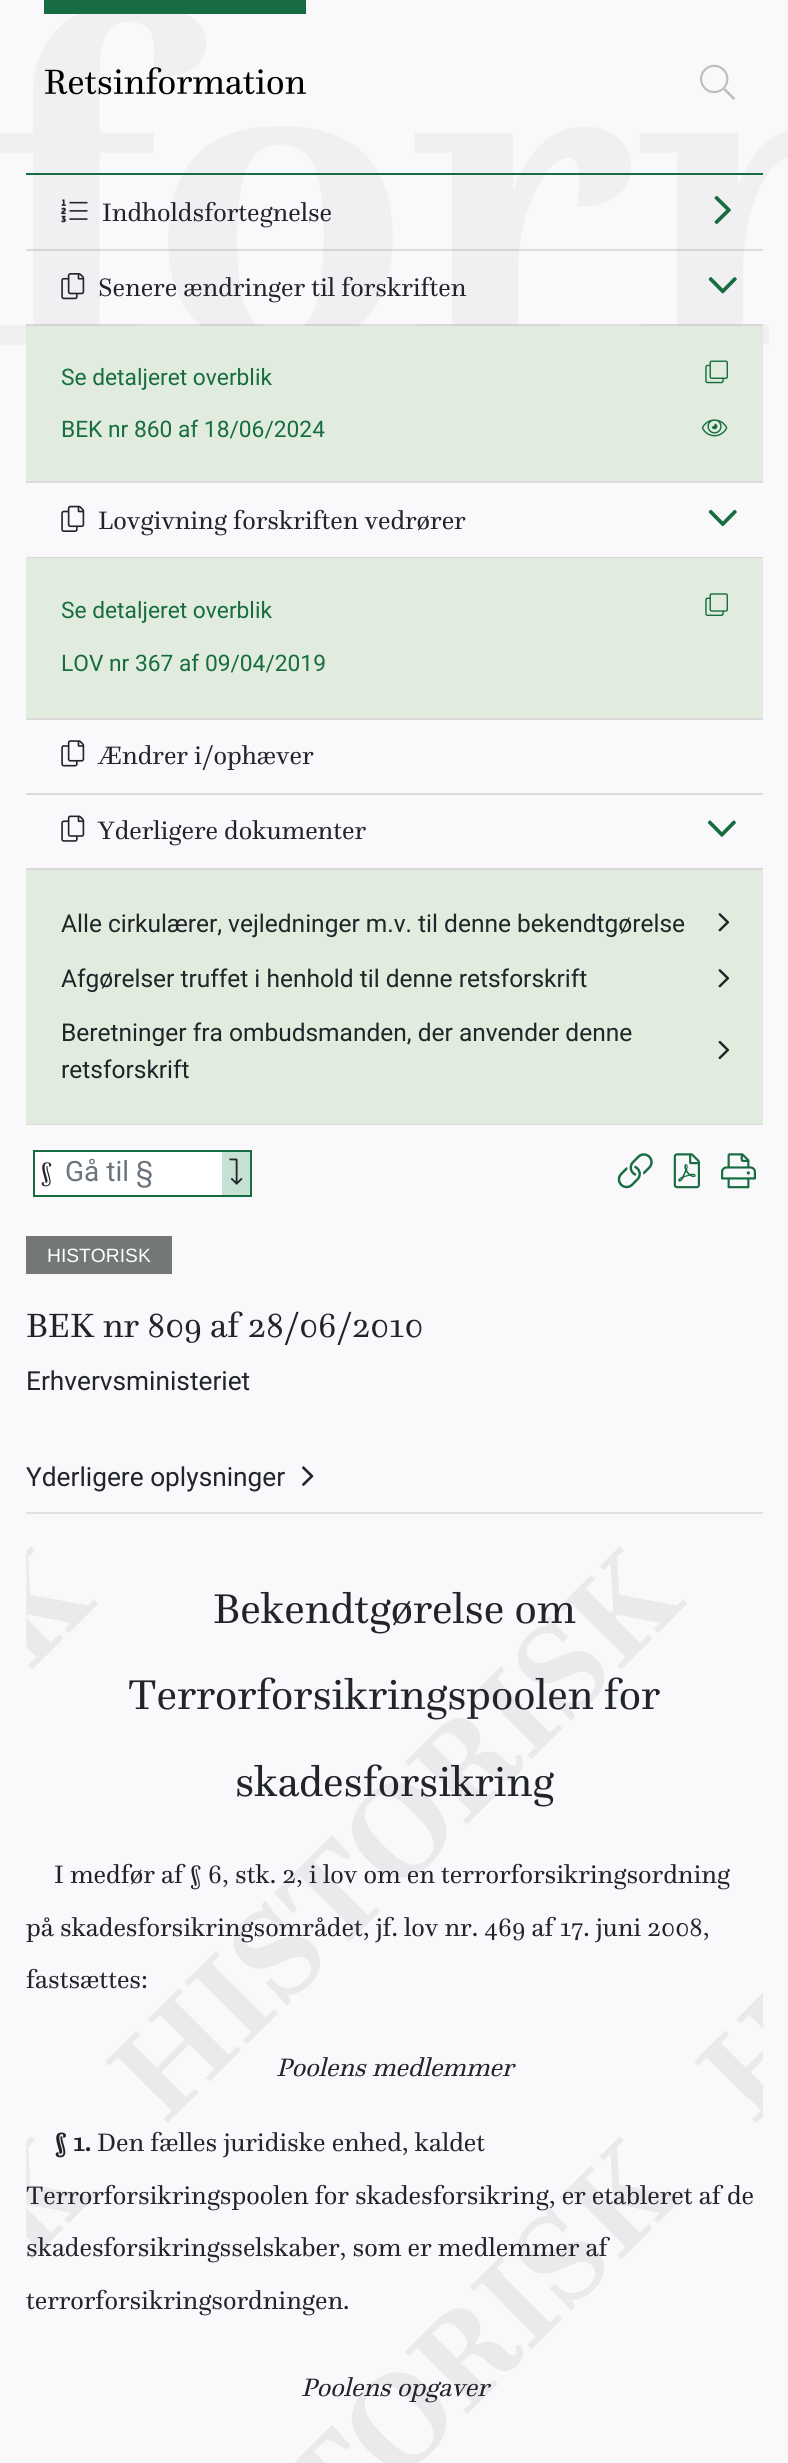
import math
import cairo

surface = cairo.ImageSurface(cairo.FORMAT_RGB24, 788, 2463)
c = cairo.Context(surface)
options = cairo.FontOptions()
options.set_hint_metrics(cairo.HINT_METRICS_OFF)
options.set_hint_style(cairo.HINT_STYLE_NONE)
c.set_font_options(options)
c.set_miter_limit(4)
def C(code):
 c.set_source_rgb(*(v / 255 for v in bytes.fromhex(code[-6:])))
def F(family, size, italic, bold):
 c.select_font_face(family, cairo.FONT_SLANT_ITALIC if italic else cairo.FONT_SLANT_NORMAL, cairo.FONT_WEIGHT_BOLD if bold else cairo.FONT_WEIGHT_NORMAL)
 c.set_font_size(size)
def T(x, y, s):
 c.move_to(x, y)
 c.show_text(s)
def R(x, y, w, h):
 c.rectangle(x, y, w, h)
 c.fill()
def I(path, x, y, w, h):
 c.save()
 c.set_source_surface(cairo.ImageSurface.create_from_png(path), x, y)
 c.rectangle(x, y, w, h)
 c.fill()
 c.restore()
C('f9f9fb')
c.paint()
I('1.png',0,14,788,331)
C('176d41')
R(26,173,737,2)
R(44,0,262,14)
I('2.png',45,67,261,28)
I('3.png',700,64,35,36)
c.set_source_rgba(0,0,0,0.12)
R(26,249,737,2)
I('4.png',61,199,27,24)
F('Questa',26.25,0,0)
C('212529')
T(102,221,'Indholdsfortegnelse')
I('5.png',714,196,17,28)
C('dadadc')
R(26,481,737,2)
c.set_source_rgba(0,0,0,0.12)
R(26,324,737,2)
I('6.png',61,273,24,27)
C('212529')
T(98,296,'Senere ændringer til forskriften')
I('7.png',708,277,29,17)
C('e1ecdf')
R(26,326,737,155)
F('Roboto',22.75,0,0)
C('176d41')
T(61,385,'Se detaljeret overblik')
I('8.png',705,360,23,24)
T(61,437,'BEK nr 860 af 18/06/2024')
I('9.png',701,419,27,18)
C('dadadc')
R(26,718,737,2)
R(26,557,737,1)
I('10.png',61,505,24,27)
F('Questa',26.25,0,0)
C('212529')
T(98,529,'Lovgivning forskriften vedrører')
I('11.png',708,509,29,18)
C('e1ecdf')
R(26,558,737,160)
F('Roboto',22.75,0,0)
C('176d41')
T(61,618,'Se detaljeret overblik')
I('12.png',705,593,23,23)
T(61,671,'LOV nr 367 af 09/04/2019')
C('dadadc')
R(26,793,737,2)
I('13.png',61,740,24,27)
F('Questa',26.25,0,0)
C('212529')
T(98,764,'Ændrer i/ophæver')
C('dadadc')
R(26,1124,737,1)
R(26,868,737,2)
I('14.png',61,815,24,27)
C('212529')
T(98,839,'Yderligere dokumenter')
I('15.png',707,820,29,17)
C('e1ecdf')
R(26,870,737,254)
F('Roboto',24.5,0,0)
C('212529')
T(61,932,'Alle cirkulærer, vejledninger m.v. til denne bekendtgørelse')
I('16.png',718,913,12,19)
T(61,987,'Afgørelser truffet i henhold til denne retsforskrift')
I('16.png',718,969,12,19)
T(61,1041,'Beretninger fra ombudsmanden, der anvender denne')
T(61,1078,'retsforskrift')
I('17.png',718,1040,12,20)
c.rectangle(34,1151,217,45)
C('176d41')
c.stroke()
C('ffffff')
R(35,1152,187,43)
F('Questa',26.25,0,0)
C('212529')
T(40,1180,'§')
F('Roboto',28,0,0)
C('6c757d')
T(65,1181,'Gå til §')
C('c6e1d3')
R(222,1152,28,43)
I('18.png',229,1158,14,27)
I('19.png',617,1153,36,36)
I('20.png',673,1153,27,36)
I('21.png',721,1153,35,36)
C('737778')
R(26,1236,146,38)
F('Liberation Sans',19.25,0,0)
C('ffffff')
T(47,1262,'HISTORISK')
F('Questa',35,0,0)
C('212529')
T(26,1337,'BEK nr 809 af 28/06/2010')
F('Roboto',26.25,0,0)
T(26,1390,'Erhvervsministeriet')
T(26,1486,'Yderligere oplysninger')
I('22.png',302,1466,12,20)
C('e0e0e2')
R(26,1512,737,2)
I('23.png',26,1546,737,917)
F('Questa',43.25,0,0)
C('212529')
T(213,1623,'Bekendtgørelse om')
T(128,1709,'Terrorforsikringspoolen for')
T(235,1796,'skadesforsikring')
F('Questa',26.25,0,0)
T(54,1883,'I medfør af § 6, stk. 2, i lov om en terrorforsikringsordning')
T(26,1936,'på skadesforsikringsområdet, jf. lov nr. 469 af 17. juni 2008,')
T(26,1988,'fastsættes:')
F('Questa',26.25,1,0)
T(276,2076,'Poolens medlemmer')
F('Questa',26.25,0,1)
T(54,2151,'§ 1.')
F('Questa',26.25,0,0)
T(97,2151,'Den fælles juridiske enhed, kaldet')
T(26,2204,'Terrorforsikringspoolen for skadesforsikring, er etableret af de')
T(26,2256,'skadesforsikringsselskaber, som er medlemmer af')
T(26,2309,'terrorforsikringsordningen.')
F('Questa',26.25,1,0)
T(301,2396,'Poolens opgaver')
surface.write_to_png('o.png')
